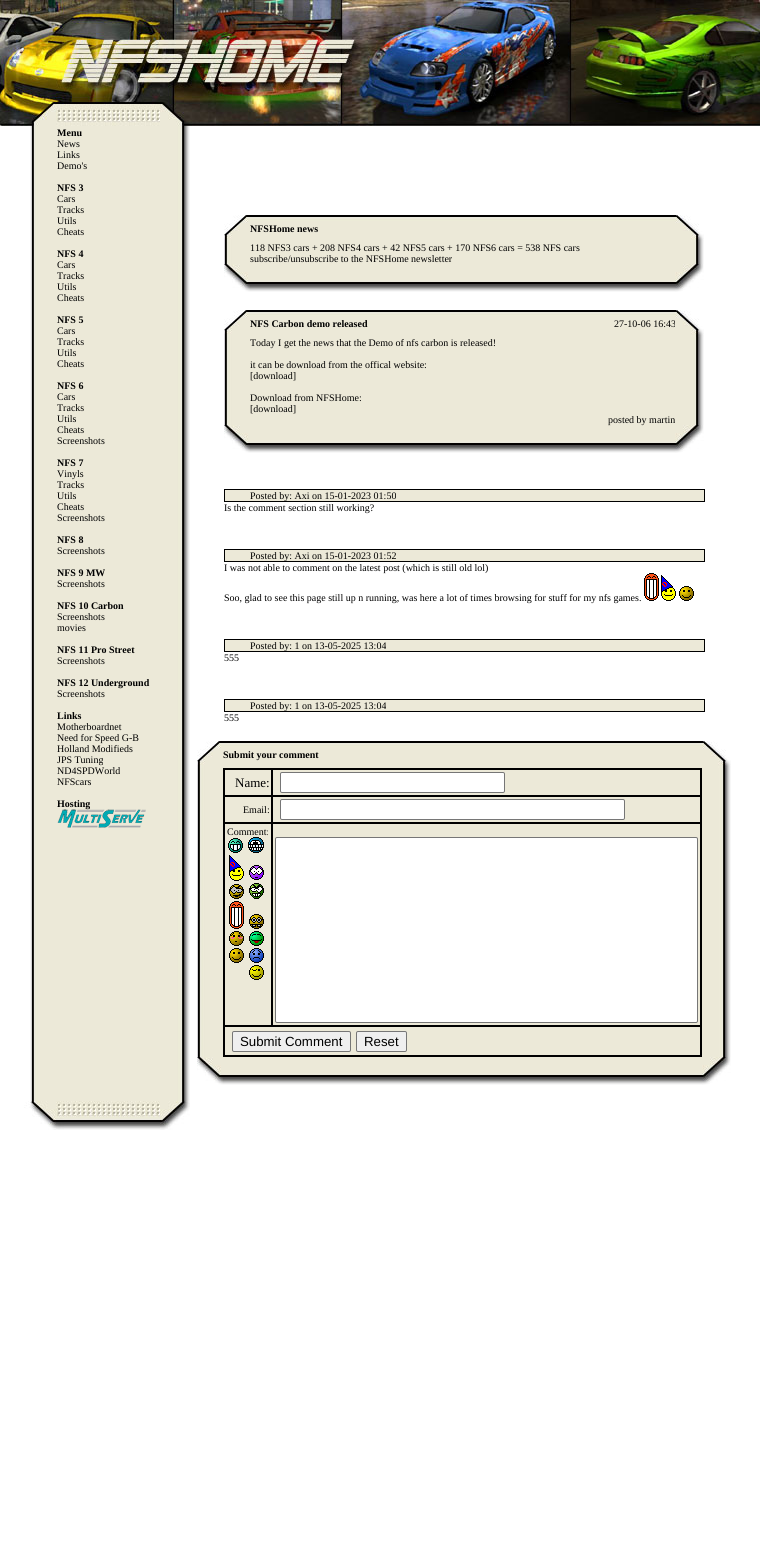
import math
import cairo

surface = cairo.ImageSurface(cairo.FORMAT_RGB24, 760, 1548)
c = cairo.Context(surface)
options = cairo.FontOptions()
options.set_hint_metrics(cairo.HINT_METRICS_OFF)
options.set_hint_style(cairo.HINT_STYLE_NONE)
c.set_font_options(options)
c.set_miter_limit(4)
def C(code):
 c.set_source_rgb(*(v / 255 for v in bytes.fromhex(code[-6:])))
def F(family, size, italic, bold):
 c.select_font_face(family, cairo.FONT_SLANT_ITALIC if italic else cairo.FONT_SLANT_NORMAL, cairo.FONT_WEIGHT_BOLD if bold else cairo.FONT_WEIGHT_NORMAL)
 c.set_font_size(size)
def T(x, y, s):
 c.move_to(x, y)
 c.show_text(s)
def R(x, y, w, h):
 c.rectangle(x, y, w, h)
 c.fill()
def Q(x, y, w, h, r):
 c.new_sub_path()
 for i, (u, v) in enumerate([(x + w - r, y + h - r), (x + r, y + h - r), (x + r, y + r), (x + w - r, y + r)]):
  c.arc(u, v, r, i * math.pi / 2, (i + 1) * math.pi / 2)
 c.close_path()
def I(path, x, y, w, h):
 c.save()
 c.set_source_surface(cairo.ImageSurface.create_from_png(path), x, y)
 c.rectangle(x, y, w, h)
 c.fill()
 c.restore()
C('ffffff')
c.paint()
I('1.png',0,0,760,126)
I('2.png',30,126,160,975)
F('Liberation Serif',10,0,1)
C('000000')
T(57,136,'Menu')
F('Liberation Serif',10,0,0)
T(57,147,'News')
T(57,158,'Links')
T(57,169,'Demo\'s')
F('Liberation Serif',10,0,1)
T(57,191,'NFS 3')
F('Liberation Serif',10,0,0)
T(57,202,'Cars')
T(57,213,'Tracks')
T(57,224,'Utils')
T(57,235,'Cheats')
F('Liberation Serif',10,0,1)
T(57,257,'NFS 4')
F('Liberation Serif',10,0,0)
T(57,268,'Cars')
T(57,279,'Tracks')
T(57,290,'Utils')
T(57,301,'Cheats')
F('Liberation Serif',10,0,1)
T(57,323,'NFS 5')
F('Liberation Serif',10,0,0)
T(57,334,'Cars')
T(57,345,'Tracks')
T(57,356,'Utils')
T(57,367,'Cheats')
F('Liberation Serif',10,0,1)
T(57,389,'NFS 6')
F('Liberation Serif',10,0,0)
T(57,400,'Cars')
T(57,411,'Tracks')
T(57,422,'Utils')
T(57,433,'Cheats')
T(57,444,'Screenshots')
F('Liberation Serif',10,0,1)
T(57,466,'NFS 7')
F('Liberation Serif',10,0,0)
T(57,477,'Vinyls')
T(57,488,'Tracks')
T(57,499,'Utils')
T(57,510,'Cheats')
T(57,521,'Screenshots')
F('Liberation Serif',10,0,1)
T(57,543,'NFS 8')
F('Liberation Serif',10,0,0)
T(57,554,'Screenshots')
F('Liberation Serif',10,0,1)
T(57,576,'NFS 9 MW')
F('Liberation Serif',10,0,0)
T(57,587,'Screenshots')
F('Liberation Serif',10,0,1)
T(57,609,'NFS 10 Carbon')
F('Liberation Serif',10,0,0)
T(57,620,'Screenshots')
T(57,631,'movies')
F('Liberation Serif',10,0,1)
T(57,653,'NFS 11 Pro Street')
F('Liberation Serif',10,0,0)
T(57,664,'Screenshots')
F('Liberation Serif',10,0,1)
T(57,686,'NFS 12 Underground')
F('Liberation Serif',10,0,0)
T(57,697,'Screenshots')
F('Liberation Serif',10,0,1)
T(57,719,'Links')
F('Liberation Serif',10,0,0)
T(57,730,'Motherboardnet')
T(57,741,'Need for Speed G-B')
T(57,752,'Holland Modifieds')
T(57,763,'JPS Tuning')
T(57,774,'ND4SPDWorld')
T(57,785,'NFScars')
F('Liberation Serif',10,0,1)
T(57,807,'Hosting')
I('3.png',57,809,89,19)
I('4.png',224,215,26,27)
I('5.png',250,215,425,27)
T(250,232,'NFSHome news')
I('6.png',675,215,29,27)
I('7.png',224,242,26,22)
C('ece9d8')
R(250,242,425,22)
F('Liberation Serif',10,0,0)
C('000000')
T(250,251,'118 NFS3 cars + 208 NFS4 cars + 42 NFS5 cars + 170 NFS6 cars = 538 NFS cars')
T(250,262,'subscribe/unsubscribe to the NFSHome newsletter')
I('8.png',675,242,29,22)
I('9.png',224,264,26,28)
I('10.png',250,264,425,28)
I('11.png',675,264,29,28)
I('4.png',224,310,26,27)
I('5.png',250,310,425,27)
F('Liberation Serif',10,0,1)
T(250,327,'NFS Carbon demo released')
F('Liberation Serif',10,0,0)
T(614,327,'27-10-06 16:43')
I('6.png',675,310,29,27)
I('12.png',224,337,26,88)
C('ece9d8')
R(250,337,425,88)
C('000000')
T(250,346,'Today I get the news that the Demo of nfs carbon is released!')
T(250,368,'it can be download from the offical website:')
T(250,379,'[download]')
T(250,401,'Download from NFSHome:')
T(250,412,'[download]')
I('13.png',675,337,29,88)
I('10.png',250,425,425,28)
T(608,423,'posted by martin')
I('9.png',224,425,26,28)
I('11.png',675,425,29,28)
R(224,489,481,13)
C('ece9d8')
R(225,490,479,11)
C('000000')
T(250,499,'Posted by: Axi on 15-01-2023 01:50')
T(224,511,'Is the comment section still working?')
R(224,549,481,13)
C('ece9d8')
R(225,550,479,11)
C('000000')
T(250,559,'Posted by: Axi on 15-01-2023 01:52')
T(224,571,'I was not able to comment on the latest post (which is still old lol)')
T(224,601,'Soo, glad to see this page still up n running, was here a lot of times browsing for stuff for my nfs games.')
I('14.png',644,573,15,28)
I('15.png',661,575,15,26)
I('16.png',679,586,15,15)
R(224,639,481,13)
C('ece9d8')
R(225,640,479,11)
C('000000')
T(250,649,'Posted by: 1 on 13-05-2025 13:04')
T(224,661,'555')
R(224,699,481,13)
C('ece9d8')
R(225,700,479,11)
C('000000')
T(250,709,'Posted by: 1 on 13-05-2025 13:04')
T(224,721,'555')
I('4.png',197,741,26,27)
I('17.png',223,741,479,27)
F('Liberation Serif',10,0,1)
T(223,758,'Submit your comment')
I('6.png',702,741,29,27)
I('18.png',197,768,26,289)
C('ece9d8')
R(225,770,475,285)
c.rectangle(223.5,768.5,478,288)
C('000000')
c.set_line_width(1)
c.stroke()
c.rectangle(224.5,769.5,47,26)
c.stroke()
F('Liberation Serif',13,0,0)
T(235,787,'Name:')
c.rectangle(272.5,769.5,428,26)
c.stroke()
C('ffffff')
Q(280.5,772.5,224,20,1.5)
c.fill_preserve()
C('767676')
c.stroke()
c.rectangle(224.5,796.5,47,26)
C('000000')
c.stroke()
F('Liberation Serif',10,0,0)
T(243,813,'Email:')
c.rectangle(272.5,796.5,428,26)
c.stroke()
C('ffffff')
Q(280.5,799.5,344,20,1.5)
c.fill_preserve()
C('767676')
c.stroke()
c.rectangle(224.5,823.5,47,202)
C('000000')
c.stroke()
T(227,835,'Comment:')
I('19.png',228,838,15,15)
I('20.png',248,837,16,16)
I('21.png',229,855,15,26)
I('22.png',249,865,15,15)
I('23.png',229,884,15,15)
I('24.png',249,883,15,16)
I('25.png',229,901,15,28)
I('26.png',249,914,15,15)
I('27.png',229,931,15,15)
I('28.png',249,931,15,15)
I('29.png',229,948,15,15)
I('30.png',249,948,15,15)
I('31.png',249,965,15,15)
c.rectangle(272.5,823.5,428,202)
c.stroke()
C('ffffff')
Q(275.5,837.5,422,185,1.5)
c.fill_preserve()
C('767676')
c.stroke()
c.rectangle(224.5,1026.5,476,29)
C('000000')
c.stroke()
C('efefef')
Q(232.5,1031.5,118,20,1.5)
c.fill_preserve()
C('767676')
c.stroke()
F('Liberation Sans',13.25,0,0)
C('000000')
T(240,1046,'Submit Comment')
C('efefef')
Q(356.5,1031.5,50,20,1.5)
c.fill_preserve()
C('767676')
c.stroke()
C('000000')
T(364,1046,'Reset')
I('32.png',702,768,29,289)
I('9.png',197,1057,26,28)
I('33.png',223,1057,479,28)
I('11.png',702,1057,29,28)
I('34.png',24,1101,166,29)
surface.write_to_png('o.png')
